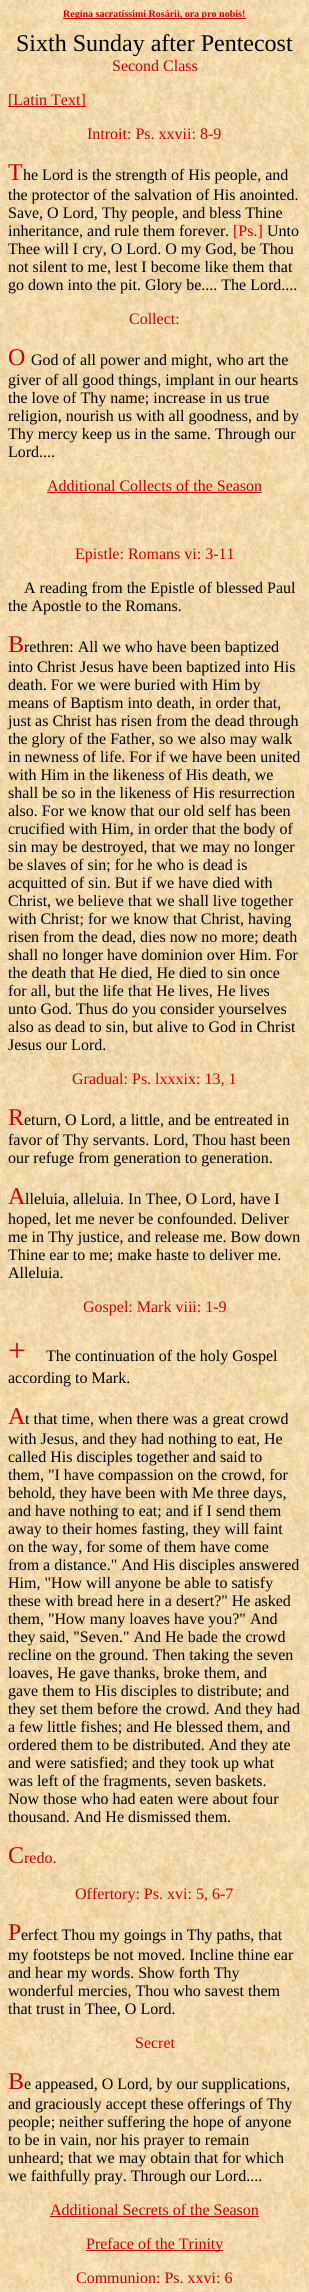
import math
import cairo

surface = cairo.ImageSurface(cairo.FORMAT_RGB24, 309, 2292)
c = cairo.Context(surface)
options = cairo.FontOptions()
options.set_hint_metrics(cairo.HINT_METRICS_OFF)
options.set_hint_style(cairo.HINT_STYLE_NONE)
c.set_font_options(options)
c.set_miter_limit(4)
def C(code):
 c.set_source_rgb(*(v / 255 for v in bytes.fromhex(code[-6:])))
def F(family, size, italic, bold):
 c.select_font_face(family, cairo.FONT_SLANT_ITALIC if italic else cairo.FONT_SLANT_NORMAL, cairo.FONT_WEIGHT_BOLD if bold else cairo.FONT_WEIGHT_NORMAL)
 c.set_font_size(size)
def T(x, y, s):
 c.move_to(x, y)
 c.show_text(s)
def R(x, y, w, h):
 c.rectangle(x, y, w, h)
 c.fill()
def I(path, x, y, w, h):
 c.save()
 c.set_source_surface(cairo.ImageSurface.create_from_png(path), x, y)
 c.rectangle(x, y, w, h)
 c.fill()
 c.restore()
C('ffffff')
c.paint()
I('1.png',0,0,309,2292)
C('cc0000')
R(63,18,183,1)
F('Liberation Serif',10,0,1)
T(63,17,'Regína sacratíssimi Rosárii, ora pro nobis!')
F('Liberation Serif',24,0,0)
C('000000')
T(16,51,'Sixth Sunday after Pentecost')
F('Liberation Serif',16,0,0)
C('cc0000')
T(112,71,'Second Class')
R(8,106,78,1)
T(8,105,'[Latin Text]')
T(87,139,'Introit: Ps. xxvii: 8-9')
F('Liberation Serif',24,0,0)
T(8,180,'T')
F('Liberation Serif',16,0,0)
C('000000')
T(23,180,'he Lord is the strength of His people, and')
T(8,200,'the protector of the salvation of His anointed.')
T(8,218,'Save, O Lord, Thy people, and bless Thine')
T(8,236,'inheritance, and rule them forever.')
C('cc0000')
T(233,236,'[Ps.]')
C('000000')
T(267,236,'Unto')
T(8,254,'Thee will I cry, O Lord. O my God, be Thou')
T(8,272,'not silent to me, lest I become like them that')
T(8,290,'go down into the pit. Glory be.... The Lord....')
C('cc0000')
T(129,324,'Collect:')
F('Liberation Serif',24,0,0)
T(8,365,'O')
F('Liberation Serif',16,0,0)
C('000000')
T(31,365,'God of all power and might, who art the')
T(8,385,'giver of all good things, implant in our hearts')
T(8,403,'the love of Thy name; increase in us true')
T(8,421,'religion, nourish us with all goodness, and by')
T(8,439,'Thy mercy keep us in the same. Through our')
T(8,457,'Lord....')
C('cc0000')
T(47,491,'Additional Collects of the Season')
R(47,492,215,1)
T(75,559,'Epistle: Romans vi: 3-11')
C('000000')
T(24,593,'A reading from the Epistle of blessed Paul')
T(8,611,'the Apostle to the Romans.')
F('Liberation Serif',24,0,0)
C('cc0000')
T(8,652,'B')
F('Liberation Serif',16,0,0)
C('000000')
T(24,652,'rethren: All we who have been baptized')
T(8,672,'into Christ Jesus have been baptized into His')
T(8,690,'death. For we were buried with Him by')
T(8,708,'means of Baptism into death, in order that,')
T(8,726,'just as Christ has risen from the dead through')
T(8,744,'the glory of the Father, so we also may walk')
T(8,762,'in newness of life. For if we have been united')
T(8,780,'with Him in the likeness of His death, we')
T(8,798,'shall be so in the likeness of His resurrection')
T(8,816,'also. For we know that our old self has been')
T(8,834,'crucified with Him, in order that the body of')
T(8,852,'sin may be destroyed, that we may no longer')
T(8,870,'be slaves of sin; for he who is dead is')
T(8,888,'acquitted of sin. But if we have died with')
T(8,906,'Christ, we believe that we shall live together')
T(8,924,'with Christ; for we know that Christ, having')
T(8,942,'risen from the dead, dies now no more; death')
T(8,960,'shall no longer have dominion over Him. For')
T(8,978,'the death that He died, He died to sin once')
T(8,996,'for all, but the life that He lives, He lives')
T(8,1014,'unto God. Thus do you consider yourselves')
T(8,1032,'also as dead to sin, but alive to God in Christ')
T(8,1050,'Jesus our Lord.')
C('cc0000')
T(72,1084,'Gradual: Ps. lxxxix: 13, 1')
F('Liberation Serif',24,0,0)
T(8,1125,'R')
F('Liberation Serif',16,0,0)
C('000000')
T(24,1125,'eturn, O Lord, a little, and be entreated in')
T(8,1145,'favor of Thy servants. Lord, Thou hast been')
T(8,1163,'our refuge from generation to generation.')
F('Liberation Serif',24,0,0)
C('cc0000')
T(8,1204,'A')
F('Liberation Serif',16,0,0)
C('000000')
T(25,1204,'lleluia, alleluia. In Thee, O Lord, have I')
T(8,1224,'hoped, let me never be confounded. Deliver')
T(8,1242,'me in Thy justice, and release me. Bow down')
T(8,1260,'Thine ear to me; make haste to deliver me.')
T(8,1278,'Alleluia.')
C('cc0000')
T(83,1312,'Gospel: Mark viii: 1-9')
F('Liberation Serif',32,0,0)
T(8,1361,'+')
F('Liberation Serif',16,0,0)
C('000000')
T(46,1361,'The continuation of the holy Gospel')
T(8,1383,'according to Mark.')
F('Liberation Serif',24,0,0)
C('cc0000')
T(8,1424,'A')
F('Liberation Serif',16,0,0)
C('000000')
T(25,1424,'t that time, when there was a great crowd')
T(8,1444,'with Jesus, and they had nothing to eat, He')
T(8,1462,'called His disciples together and said to')
T(8,1480,'them, "I have compassion on the crowd, for')
T(8,1498,'behold, they have been with Me three days,')
T(8,1516,'and have nothing to eat; and if I send them')
T(8,1534,'away to their homes fasting, they will faint')
T(8,1552,'on the way, for some of them have come')
T(8,1570,'from a distance." And His disciples answered')
T(8,1588,'Him, "How will anyone be able to satisfy')
T(8,1606,'these with bread here in a desert?" He asked')
T(8,1624,'them, "How many loaves have you?" And')
T(8,1642,'they said, "Seven." And He bade the crowd')
T(8,1660,'recline on the ground. Then taking the seven')
T(8,1678,'loaves, He gave thanks, broke them, and')
T(8,1696,'gave them to His disciples to distribute; and')
T(8,1714,'they set them before the crowd. And they had')
T(8,1732,'a few little fishes; and He blessed them, and')
T(8,1750,'ordered them to be distributed. And they ate')
T(8,1768,'and were satisfied; and they took up what')
T(8,1786,'was left of the fragments, seven baskets.')
T(8,1804,'Now those who had eaten were about four')
T(8,1822,'thousand. And He dismissed them.')
F('Liberation Serif',24,0,0)
C('cc0000')
T(8,1863,'C')
F('Liberation Serif',16,0,0)
T(24,1863,'redo.')
T(75,1899,'Offertory: Ps. xvi: 5, 6-7')
F('Liberation Serif',24,0,0)
T(8,1940,'P')
F('Liberation Serif',16,0,0)
C('000000')
T(21,1940,'erfect Thou my goings in Thy paths, that')
T(8,1960,'my footsteps be not moved. Incline thine ear')
T(8,1978,'and hear my words. Show forth Thy')
T(8,1996,'wonderful mercies, Thou who savest them')
T(8,2014,'that trust in Thee, O Lord.')
C('cc0000')
T(135,2048,'Secret')
F('Liberation Serif',24,0,0)
T(8,2089,'B')
F('Liberation Serif',16,0,0)
C('000000')
T(24,2089,'e appeased, O Lord, by our supplications,')
T(8,2109,'and graciously accept these offerings of Thy')
T(8,2127,'people; neither suffering the hope of anyone')
T(8,2145,'to be in vain, nor his prayer to remain')
T(8,2163,'unheard; that we may obtain that for which')
T(8,2181,'we faithfully pray. Through our Lord....')
C('cc0000')
T(50,2215,'Additional Secrets of the Season')
R(50,2216,209,1)
R(86,2250,137,1)
T(86,2249,'Preface of the Trinity')
T(76,2283,'Communion: Ps. xxvi: 6')
surface.write_to_png('o.png')
